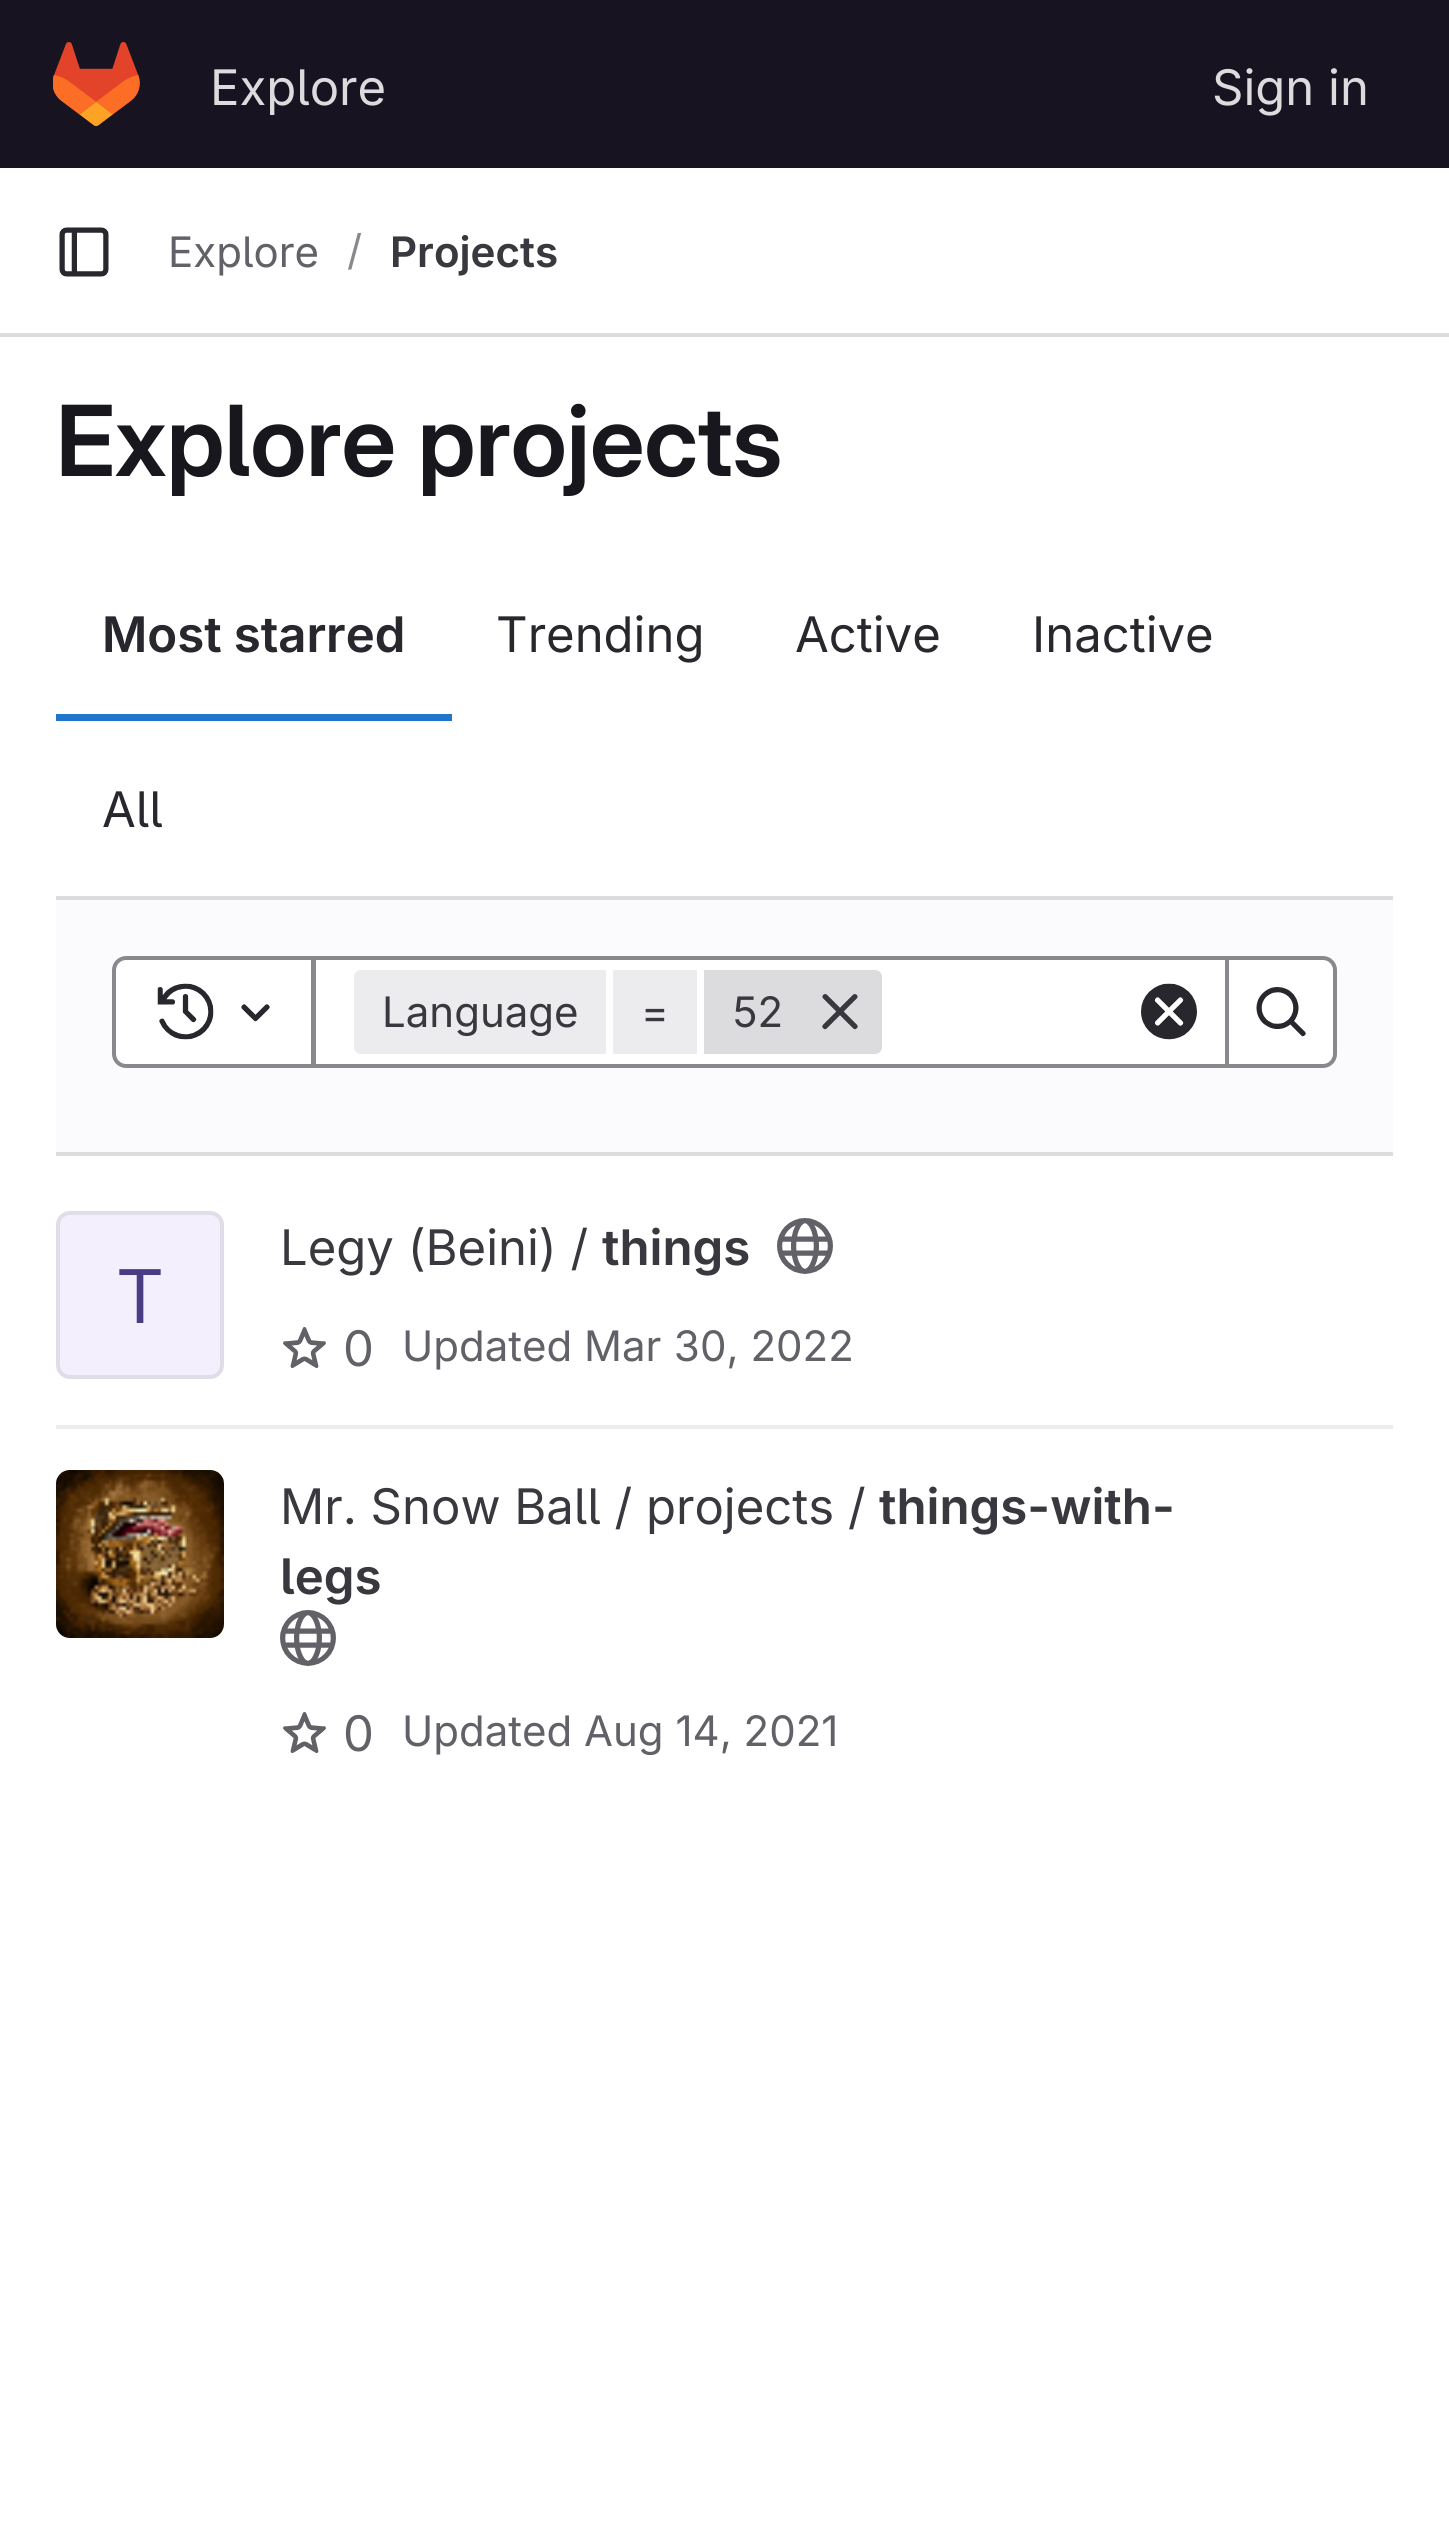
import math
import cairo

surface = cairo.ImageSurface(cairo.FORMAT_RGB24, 1449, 2534)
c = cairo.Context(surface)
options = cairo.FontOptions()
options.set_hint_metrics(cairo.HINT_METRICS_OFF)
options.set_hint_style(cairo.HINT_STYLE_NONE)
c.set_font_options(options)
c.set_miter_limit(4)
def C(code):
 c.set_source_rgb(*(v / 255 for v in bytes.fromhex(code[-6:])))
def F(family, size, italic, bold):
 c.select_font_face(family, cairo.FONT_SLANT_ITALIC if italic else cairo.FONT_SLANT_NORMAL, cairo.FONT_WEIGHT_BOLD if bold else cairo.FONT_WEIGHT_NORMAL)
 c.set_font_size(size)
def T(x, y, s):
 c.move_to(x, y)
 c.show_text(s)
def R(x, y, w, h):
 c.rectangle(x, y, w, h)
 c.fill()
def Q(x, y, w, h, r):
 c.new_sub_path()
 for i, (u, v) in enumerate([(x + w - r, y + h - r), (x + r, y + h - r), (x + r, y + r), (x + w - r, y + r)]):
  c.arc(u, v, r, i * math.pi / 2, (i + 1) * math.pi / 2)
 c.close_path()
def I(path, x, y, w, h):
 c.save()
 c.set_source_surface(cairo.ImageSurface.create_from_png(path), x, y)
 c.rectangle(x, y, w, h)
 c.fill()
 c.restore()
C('ffffff')
c.paint()
C('171321')
R(0,0,1449,168)
I('1.png',53,42,87,84)
F('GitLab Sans',49,0,0)
C('dcdcde')
T(210,105,'Explore')
T(1212,105,'Sign in')
R(0,333,1449,4)
I('2.png',59,227,50,50)
F('GitLab Sans',42,0,0)
C('626168')
T(168,267,'Explore')
C('89888d')
T(347,265,'/')
F('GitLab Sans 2 SemiBold',42,0,0)
C('3a383f')
T(390,267,'Projects')
F('GitLab Sans SemiBold',98,0,0)
C('18171d')
T(56,476,'Explore projects')
F('GitLab Sans 2 SemiBold',49,0,0)
C('28272d')
T(102,652,'Most starred')
C('1f75cb')
R(56,714,396,7)
F('GitLab Sans',49,0,0)
C('28272d')
T(496,652,'Trending')
T(795,652,'Active')
T(1032,652,'Inactive')
T(102,827,'All')
C('fbfafd')
R(56,900,1337,252)
C('dcdcde')
R(56,896,1337,4)
R(56,1152,1337,4)
C('ffffff')
c.rectangle(314,958,913,108)
c.fill_preserve()
C('89888d')
c.set_line_width(4)
c.stroke()
C('ffffff')
c.new_path()
c.move_to(126,958)
c.line_to(313,958)
c.line_to(313,1066)
c.line_to(126,1066)
c.curve_to(119.5,1066,114,1060.5,114,1054)
c.line_to(114,970)
c.curve_to(114,963.5,119.5,958,126,958)
c.close_path()
c.fill_preserve()
C('89888d')
c.stroke()
I('3.png',157,983,57,57)
I('4.png',241,1004,29,18)
C('ececef')
c.new_path()
c.move_to(361,970)
c.line_to(606,970)
c.line_to(606,1054)
c.line_to(361,1054)
c.curve_to(357,1054,354,1051,354,1047)
c.line_to(354,977)
c.curve_to(354,973,357,970,361,970)
c.close_path()
c.fill()
F('GitLab Sans',42,0,0)
C('3a383f')
T(382,1027,'Language')
C('ececef')
R(613,970,84,84)
C('3a383f')
T(641,1027,'=')
C('dcdcde')
c.new_path()
c.move_to(704,970)
c.line_to(875,970)
c.curve_to(879,970,882,973,882,977)
c.line_to(882,1047)
c.curve_to(882,1051,879,1054,875,1054)
c.line_to(704,1054)
c.close_path()
c.fill()
C('3a383f')
T(732,1027,'52')
I('5.png',822,994,36,36)
I('6.png',1141,983,56,57)
C('ffffff')
c.new_path()
c.move_to(1227,958)
c.line_to(1323,958)
c.curve_to(1329.5,958,1335,963.5,1335,970)
c.line_to(1335,1054)
c.curve_to(1335,1060.5,1329.5,1066,1323,1066)
c.line_to(1227,1066)
c.close_path()
c.fill_preserve()
C('89888d')
c.stroke()
I('7.png',1256,987,50,50)
C('ececef')
R(56,1425,1337,4)
C('f3effc')
Q(56,1211,168,168,14)
c.fill()
Q(58,1213,164,164,12)
c.set_source_rgba(0.02,0.02,0.024,0.08)
c.stroke()
F('GitLab Sans 2',74,0,0)
C('493c83')
T(117,1323,'T')
F('GitLab Sans',49,0,0)
C('3a383f')
T(280,1265,'Legy (Beini) /')
F('GitLab Sans 2 SemiBold',49,0,0)
T(602,1265,'things')
I('8.png',777,1218,56,56)
I('9.png',283,1327,43,41)
F('GitLab Sans',49,0,0)
C('626168')
T(343,1366,'0')
F('GitLab Sans',42,0,0)
T(402,1361,'Updated Mar 30, 2022')
I('10.png',56,1470,168,168)
Q(58,1472,164,164,12)
c.set_source_rgba(0.02,0.02,0.024,0.08)
c.stroke()
F('GitLab Sans',49,0,0)
C('3a383f')
T(280,1524,'Mr. Snow Ball / projects /')
F('GitLab Sans 2 SemiBold',49,0,0)
T(879,1524,'things-with-')
T(280,1594,'legs')
I('11.png',280,1610,56,56)
I('9.png',283,1712,43,41)
F('GitLab Sans',49,0,0)
C('626168')
T(343,1751,'0')
F('GitLab Sans',42,0,0)
T(402,1746,'Updated Aug 14, 2021')
surface.write_to_png('o.png')
